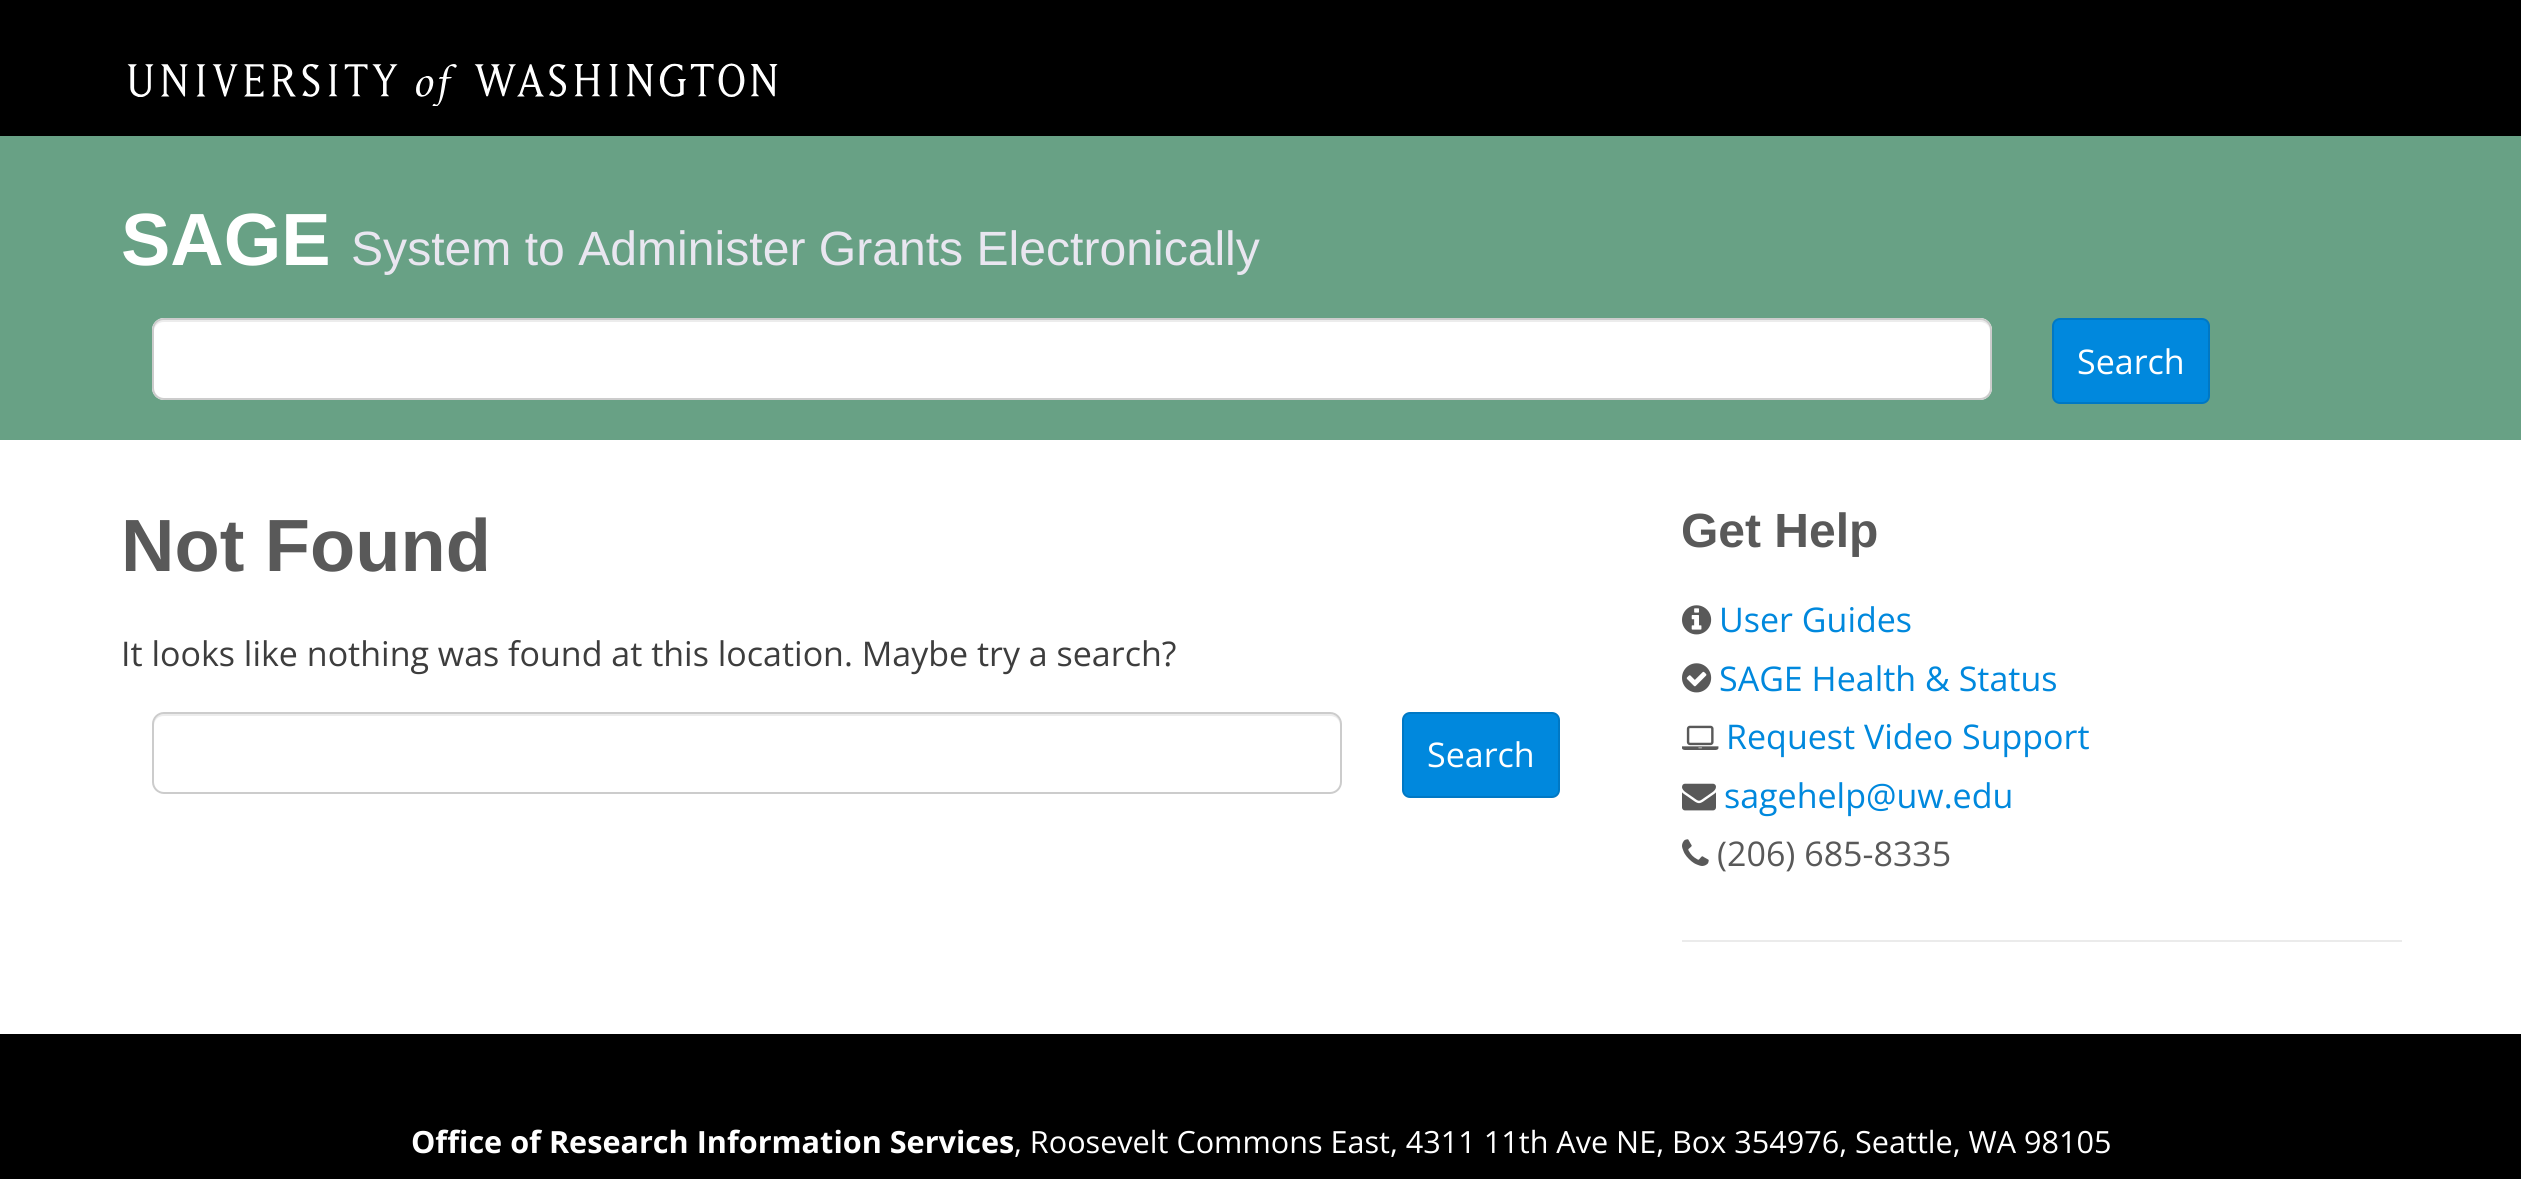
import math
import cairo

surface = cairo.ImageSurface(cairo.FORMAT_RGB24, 2521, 1179)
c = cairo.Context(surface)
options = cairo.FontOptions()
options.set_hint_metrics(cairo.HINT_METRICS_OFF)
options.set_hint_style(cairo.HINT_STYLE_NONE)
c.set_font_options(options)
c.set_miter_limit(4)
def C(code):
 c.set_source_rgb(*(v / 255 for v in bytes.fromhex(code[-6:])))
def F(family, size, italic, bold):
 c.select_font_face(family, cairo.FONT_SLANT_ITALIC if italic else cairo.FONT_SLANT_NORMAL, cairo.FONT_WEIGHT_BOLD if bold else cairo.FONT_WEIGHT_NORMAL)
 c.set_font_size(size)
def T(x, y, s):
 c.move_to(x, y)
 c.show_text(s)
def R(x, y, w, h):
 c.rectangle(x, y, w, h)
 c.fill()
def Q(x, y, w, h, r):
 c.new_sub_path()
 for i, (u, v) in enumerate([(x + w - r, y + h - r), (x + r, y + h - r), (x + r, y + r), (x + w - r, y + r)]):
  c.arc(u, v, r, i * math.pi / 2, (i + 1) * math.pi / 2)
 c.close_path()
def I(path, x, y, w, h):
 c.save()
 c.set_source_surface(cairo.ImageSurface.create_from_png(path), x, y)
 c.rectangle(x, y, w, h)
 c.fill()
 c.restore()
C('ffffff')
c.paint()
C('000000')
R(0,0,2521,136)
I('1.png',127,63,651,43)
C('68a185')
R(0,136,2521,304)
F('Liberation Sans',74,0,1)
C('ffffff')
T(121,265,'SAGE')
F('Liberation Sans',48.1,0,0)
C('e9e6f0')
T(351,265,'System to Administer Grants Electronically')
C('ffffff')
Q(152,318,1840,82,12)
c.fill()
C('ececec')
c.new_path()
c.move_to(164,322)
c.line_to(1980,322)
c.curve_to(1986,322,1990,326,1990,332)
c.curve_to(1990,326,1987,320,1980,320)
c.line_to(164,320)
c.curve_to(157,320,154,326,154,332)
c.curve_to(154,326,158,322,164,322)
c.close_path()
c.fill()
Q(153,319,1838,80,11)
C('cccccc')
c.stroke()
C('0088dd')
Q(2053,319,156,84,7)
c.fill_preserve()
C('0078c4')
c.stroke()
F('Open Sans',34,0,0)
C('ffffff')
T(2077,374,'Search')
F('Liberation Sans',74,0,1)
C('595959')
T(121,571,'Not Found')
F('Open Sans',34,0,0)
C('3d3d3d')
T(121,666,'It looks like nothing was found at this location. Maybe try a search?')
C('ececec')
c.new_path()
c.move_to(164,716)
c.line_to(1330,716)
c.curve_to(1336,716,1340,720,1340,726)
c.line_to(1340,724)
c.curve_to(1340,718,1336,714,1330,714)
c.line_to(164,714)
c.curve_to(158,714,154,718,154,724)
c.line_to(154,726)
c.curve_to(154,720,158,716,164,716)
c.close_path()
c.fill()
Q(153,713,1188,80,11)
C('cccccc')
c.stroke()
C('0088dd')
Q(1403,713,156,84,7)
c.fill_preserve()
C('0078c4')
c.stroke()
C('ffffff')
T(1427,767,'Search')
F('Liberation Sans',48,0,1)
C('595959')
T(1681,547,'Get Help')
I('2.png',1682,605,30,30)
F('Open Sans',34,0,0)
C('0088dd')
T(1719,632,'User Guides')
I('3.png',1682,663,30,30)
T(1719,691,'SAGE Health & Status')
I('4.png',1682,725,37,25)
T(1726,749,'Request Video Support')
I('5.png',1682,783,34,28)
T(1724,808,'sagehelp@uw.edu')
I('6.png',1682,839,27,27)
C('595959')
T(1717,866,'(206) 685-8335')
C('ebebeb')
R(1682,940,720,2)
C('000000')
R(0,1034,2521,145)
F('Open Sans',30.6,0,1)
C('ffffff')
T(411,1153,'Office of Research Information Services')
F('Open Sans',30.6,0,0)
T(1014,1153,', Roosevelt Commons East, 4311 11th Ave NE, Box 354976, Seattle, WA 98105')
surface.write_to_png('o.png')
